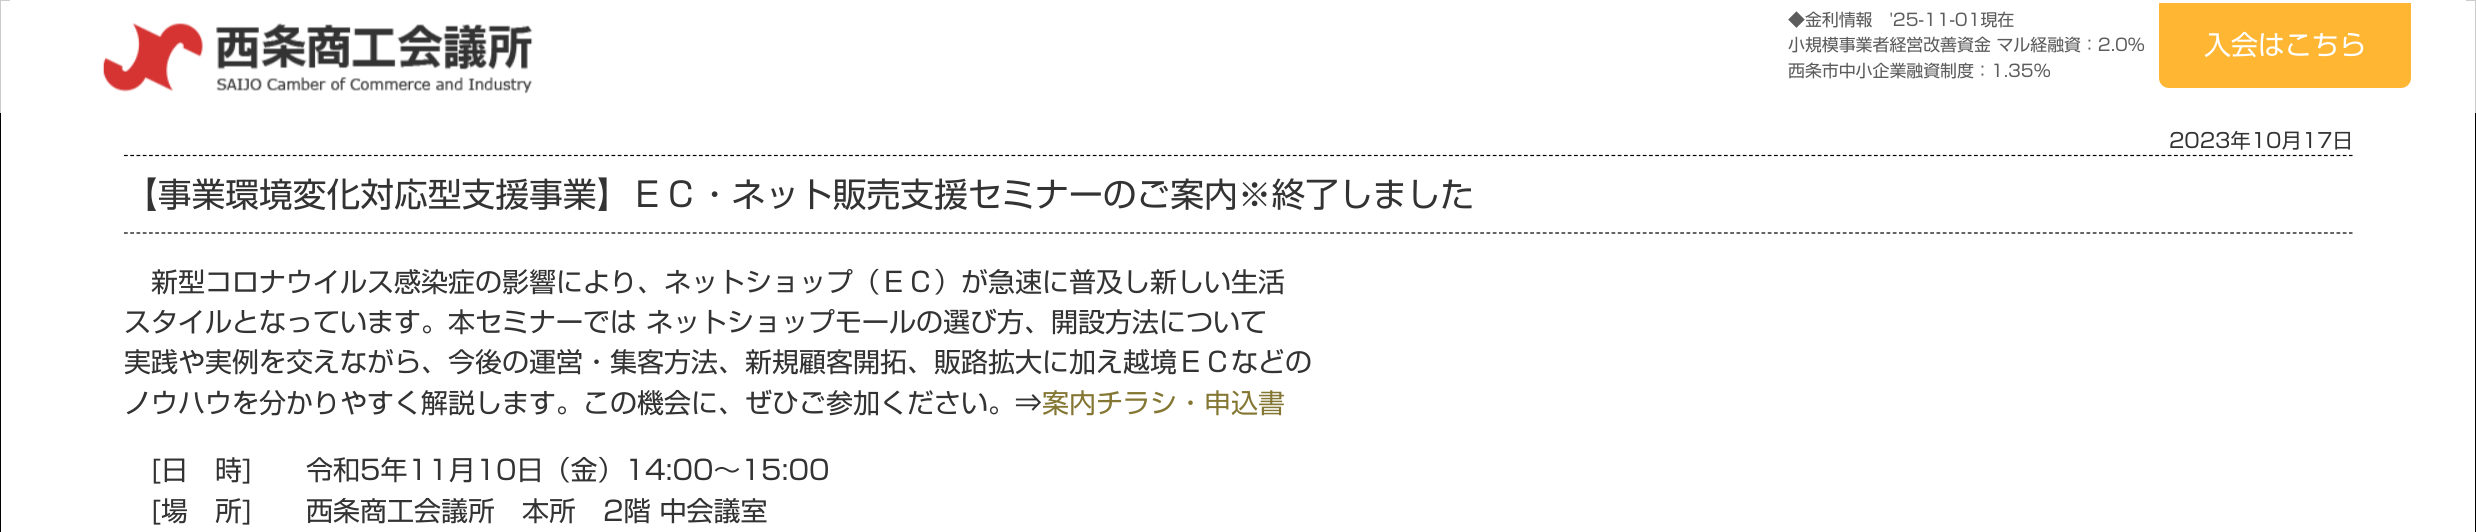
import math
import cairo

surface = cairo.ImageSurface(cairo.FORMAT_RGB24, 2476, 532)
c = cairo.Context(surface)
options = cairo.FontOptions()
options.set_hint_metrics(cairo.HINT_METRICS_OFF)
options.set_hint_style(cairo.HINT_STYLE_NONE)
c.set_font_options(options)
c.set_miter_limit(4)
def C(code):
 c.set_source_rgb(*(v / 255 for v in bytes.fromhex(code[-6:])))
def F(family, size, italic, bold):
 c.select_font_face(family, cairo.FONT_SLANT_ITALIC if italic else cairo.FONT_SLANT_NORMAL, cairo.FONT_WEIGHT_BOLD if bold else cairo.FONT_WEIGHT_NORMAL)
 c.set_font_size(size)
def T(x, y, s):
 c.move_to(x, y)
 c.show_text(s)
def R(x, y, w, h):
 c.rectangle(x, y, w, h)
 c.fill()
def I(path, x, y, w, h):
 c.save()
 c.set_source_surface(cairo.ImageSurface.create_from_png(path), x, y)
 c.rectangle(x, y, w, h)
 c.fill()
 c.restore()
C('ffffff')
c.paint()
I('1.png',102,23,431,71)
F('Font',16.9,0,0)
C('5c5c5c')
T(1788,26,'◆金利情報　\'25-11-01現在')
T(1788,51,'小規模事業者経営改善資金 マル経融資：2.0％')
T(1788,77,'西条市中小企業融資制度：1.35％')
C('ffb733')
c.new_path()
c.move_to(2159,3)
c.line_to(2411,3)
c.line_to(2411,78)
c.curve_to(2411,83.5,2406.5,88,2401,88)
c.line_to(2169,88)
c.curve_to(2163.5,88,2159,83.5,2159,78)
c.close_path()
c.fill()
F('Font',27,0,0)
C('ffffff')
T(2204,55,'入会はこちら')
F('Font',20.25,0,0)
C('333333')
T(2169,148,'2023年10月17日')
c.new_path()
c.move_to(124,155.5)
c.line_to(2352.5,155.5)
C('000000')
c.set_line_width(1.2)
c.set_dash([3.75,2.5])
c.stroke()
c.new_path()
c.move_to(124,233)
c.line_to(2352.5,233)
c.stroke()
C('cccccc')
R(0,0,10,1)
C('000000')
R(0,113,1,419)
C('cccccc')
R(0,0,1,113)
F('Font',33.75,0,0)
C('333333')
T(124,207,'【事業環境変化対応型支援事業】ＥＣ・ネット販売支援セミナーのご案内※終了しました')
C('cccccc')
R(2466,0,10,1)
C('000000')
R(2475,113,1,419)
C('cccccc')
R(2475,0,1,113)
F('Font',27,0,0)
C('333333')
T(151,292,'新型コロナウイルス感染症の影響により、ネットショップ（ＥＣ）が急速に普及し新しい生活')
T(124,332,'スタイルとなっています。本セミナーでは ネットショップモールの選び方、開設方法について')
T(124,372,'実践や実例を交えながら、今後の運営・集客方法、新規顧客開拓、販路拡大に加え越境ＥＣなどの')
T(124,413,'ノウハウを分かりやすく解説します。この機会に、ぜひご参加ください。⇒')
C('847733')
T(1042,413,'案内チラシ・申込書')
C('333333')
T(151,480,'[日　時]　　令和5年11月10日（金）14:00～15:00')
T(151,521,'[場　所]　　西条商工会議所　本所　2階 中会議室')
surface.write_to_png('o.png')
